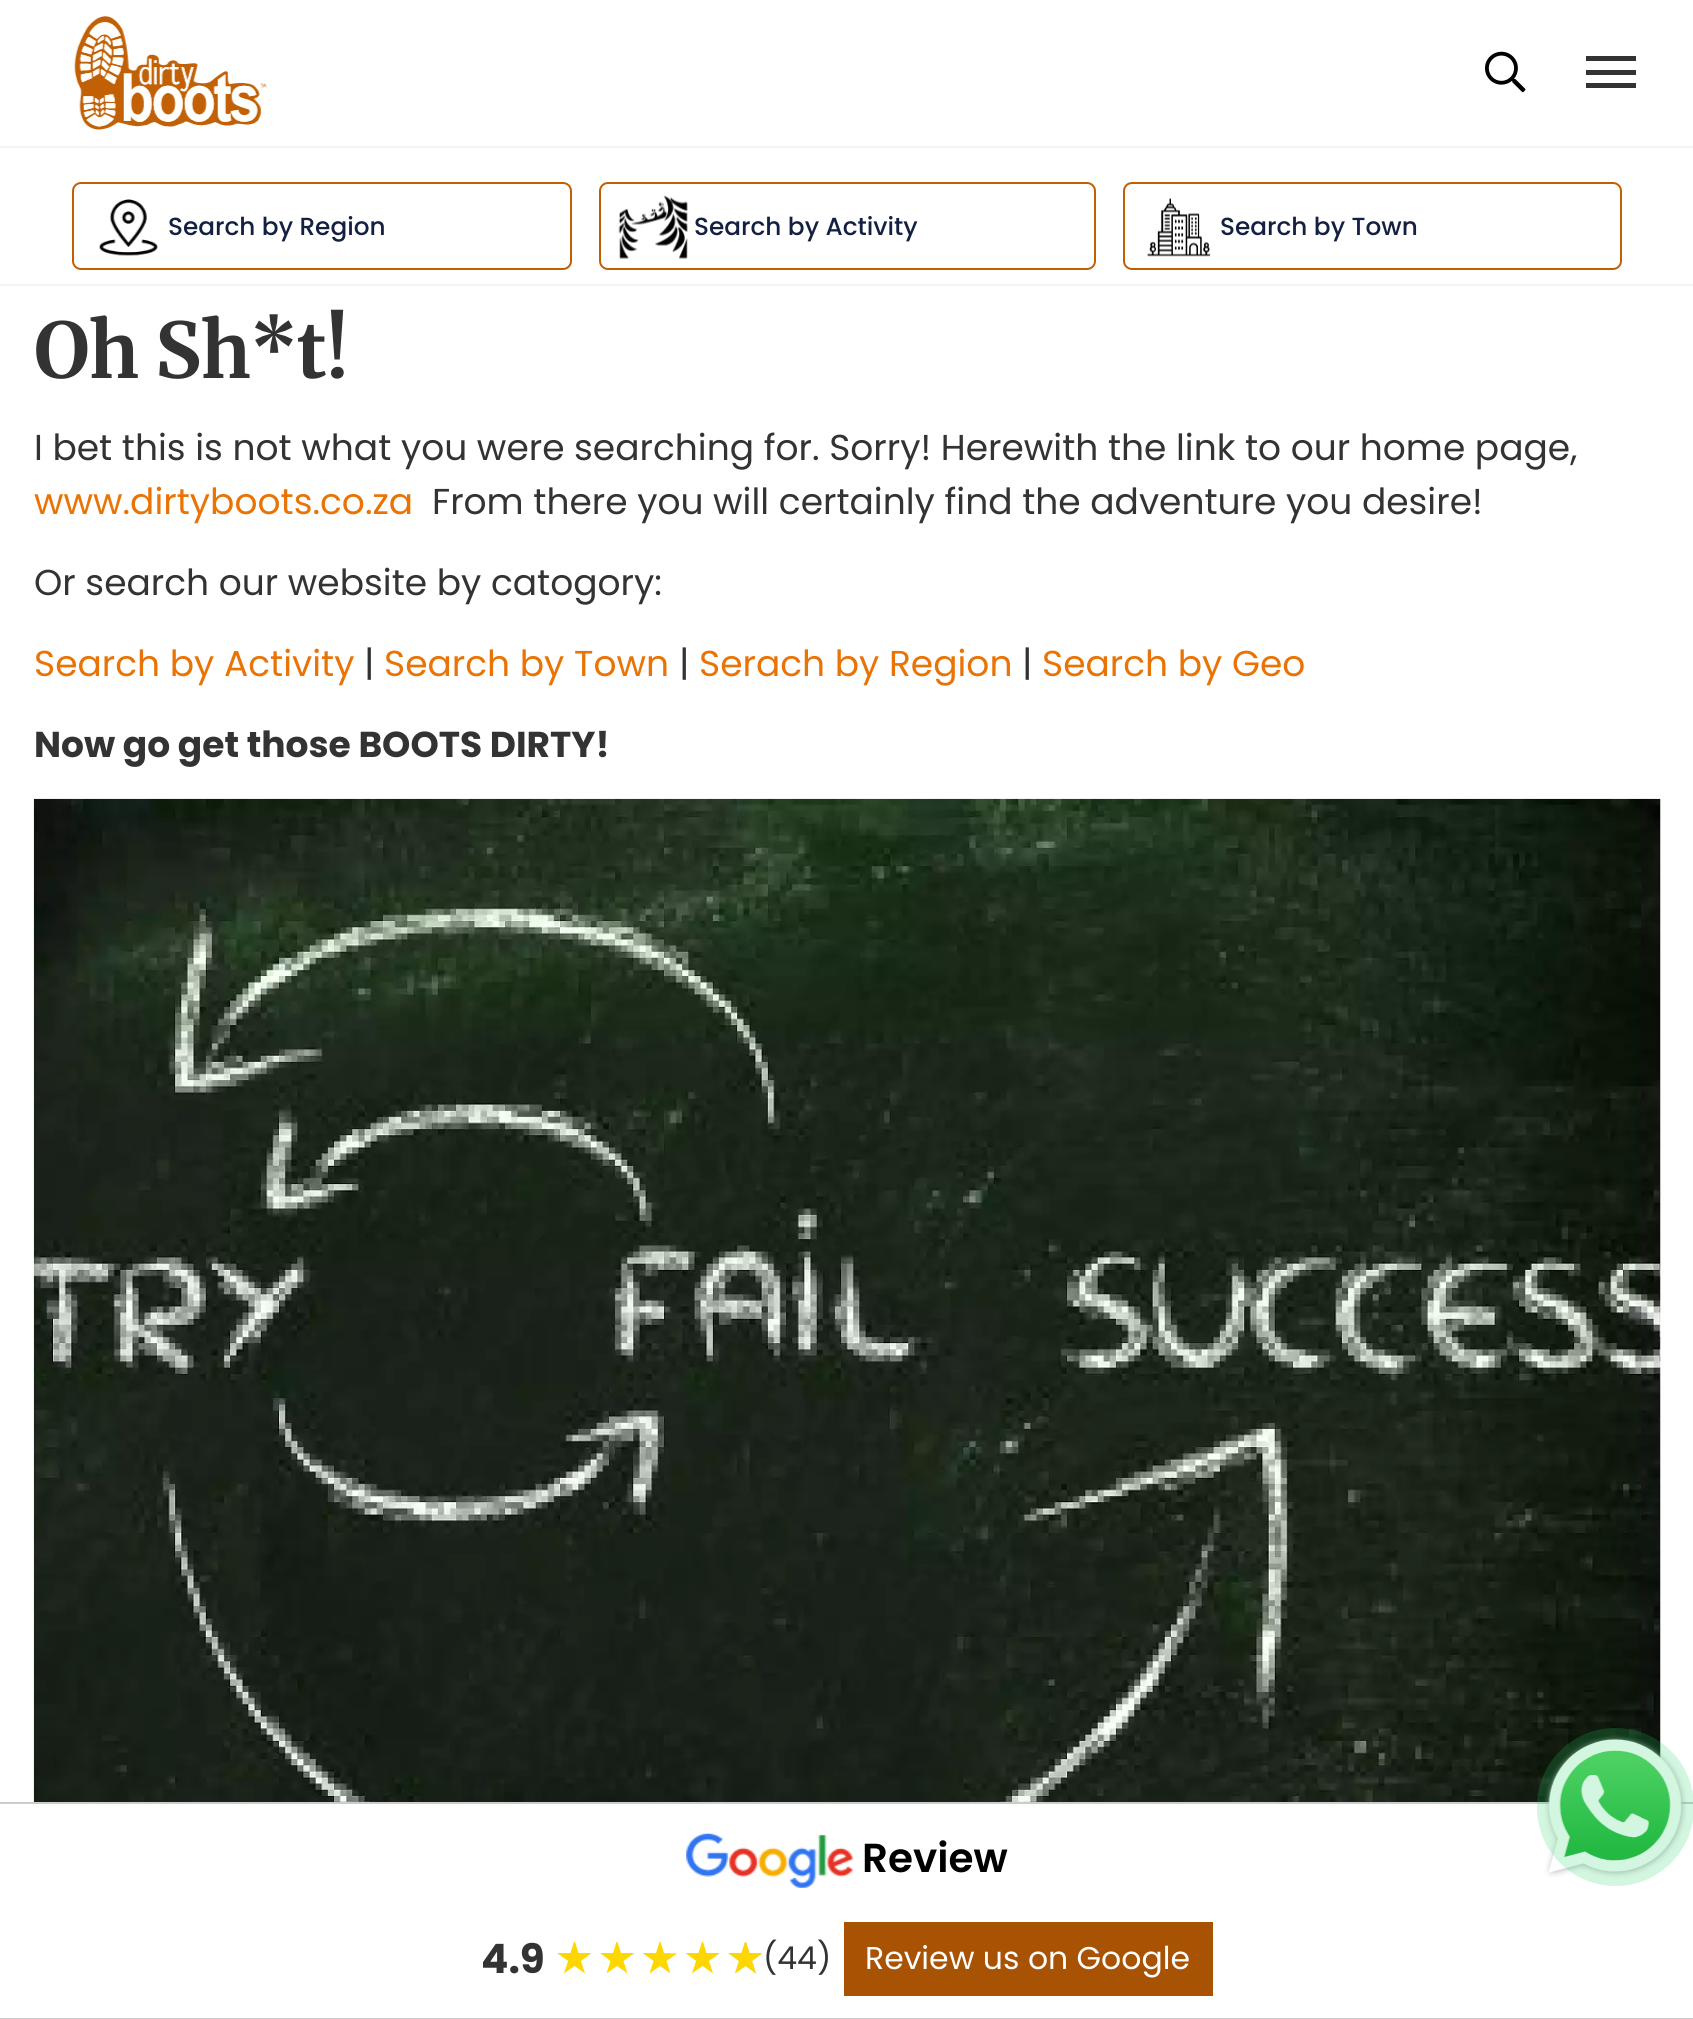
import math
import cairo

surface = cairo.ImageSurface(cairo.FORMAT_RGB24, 1693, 2019)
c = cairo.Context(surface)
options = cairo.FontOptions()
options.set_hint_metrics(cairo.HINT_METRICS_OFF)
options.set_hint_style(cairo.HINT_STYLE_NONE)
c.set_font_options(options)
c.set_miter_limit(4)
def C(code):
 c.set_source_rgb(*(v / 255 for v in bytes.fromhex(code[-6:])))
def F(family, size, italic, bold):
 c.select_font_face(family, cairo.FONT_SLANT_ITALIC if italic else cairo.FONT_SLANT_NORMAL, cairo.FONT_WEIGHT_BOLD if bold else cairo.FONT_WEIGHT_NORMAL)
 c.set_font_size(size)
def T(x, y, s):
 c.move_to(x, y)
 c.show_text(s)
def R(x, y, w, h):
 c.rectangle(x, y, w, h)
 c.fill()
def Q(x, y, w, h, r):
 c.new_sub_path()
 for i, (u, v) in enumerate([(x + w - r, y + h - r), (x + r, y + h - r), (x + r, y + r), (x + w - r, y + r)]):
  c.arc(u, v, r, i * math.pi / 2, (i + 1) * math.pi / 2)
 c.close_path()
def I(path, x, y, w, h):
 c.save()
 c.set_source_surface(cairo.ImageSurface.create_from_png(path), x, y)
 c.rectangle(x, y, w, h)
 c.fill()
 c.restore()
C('ffffff')
c.paint()
C('f4f4f4')
R(0,284,1693,2)
I('1.png',74,16,193,114)
I('2.png',1485,51,41,42)
C('333333')
R(1586,56,50,5)
R(1586,70,50,5)
R(1586,83,50,5)
C('f4f4f4')
R(0,146,1693,2)
Q(73,183,498,86,8)
C('c25f04')
c.stroke()
I('3.png',99,199,59,57)
F('Poppins Medium',24.75,0,0)
C('132042')
T(168,235,'Search by Region')
Q(600,183,495,86,8)
C('c25f04')
c.stroke()
I('4.png',618,195,70,64)
C('132042')
T(694,235,'Search by Activity')
Q(1124,183,497,86,8)
C('c25f04')
c.stroke()
I('5.png',1147,198,64,59)
C('132042')
T(1220,235,'Search by Town')
F('Merriweather',76.5,0,1)
C('333333')
T(34,378,'Oh Sh*t!')
F('Poppins',36,0,0)
T(34,460,'I bet this is not what you were searching for. Sorry! Herewith the link to our home page,')
C('ea7305')
T(34,514,'www.dirtyboots.co.za')
C('333333')
T(432,514,'From there you will certainly find the adventure you desire!')
T(34,595,'Or search our website by catogory:')
C('ea7305')
T(34,676,'Search by Activity')
C('333333')
T(364,676,'|')
C('ea7305')
T(384,676,'Search by Town')
C('333333')
T(679,676,'|')
C('ea7305')
T(699,676,'Serach by Region')
C('333333')
T(1022,676,'|')
C('ea7305')
T(1042,676,'Search by Geo')
F('Poppins',36,0,1)
C('333333')
T(34,757,'Now go get those BOOTS DIRTY!')
I('6.png',33,798,1628,1004)
C('cccccc')
R(0,1802,1693,2)
I('7.png',1544,1734,143,144)
c.set_source_rgba(0.145,0.827,0.4,0.2)
Q(1537,1728,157,158,78.5)
c.fill()
C('cccccc')
R(0,2018,1693,1)
I('8.png',686,1833,167,55)
F('Poppins SemiBold',40.5,0,0)
C('000000')
T(862,1872,'Review')
F('Poppins',40.5,0,1)
C('333333')
T(481,1973,'4.9')
C('ffd700')
c.new_path()
c.move_to(575,1942)
c.line_to(578.5,1953)
c.line_to(591.5,1953)
c.line_to(581,1961)
c.line_to(585,1973.5)
c.line_to(574.5,1966)
c.line_to(564,1973.5)
c.line_to(568,1961)
c.line_to(557,1953)
c.line_to(570.5,1953)
c.line_to(574,1942)
c.close_path()
c.fill()
c.new_path()
c.move_to(617.5,1942)
c.line_to(621,1953)
c.line_to(634.5,1953)
c.line_to(623.5,1961)
c.line_to(627.5,1973.5)
c.line_to(617,1966)
c.line_to(606.5,1973.5)
c.line_to(610.5,1961)
c.line_to(600,1953)
c.line_to(613,1953)
c.line_to(616.5,1942)
c.close_path()
c.fill()
c.new_path()
c.move_to(677,1953.5)
c.line_to(666.5,1961)
c.line_to(670.5,1973.5)
c.line_to(660,1966)
c.line_to(649.5,1973.5)
c.line_to(653.5,1961)
c.line_to(642.5,1953)
c.line_to(656,1953)
c.line_to(659.5,1942)
c.line_to(660.5,1942)
c.line_to(664,1953)
c.close_path()
c.fill()
c.new_path()
c.move_to(703,1942)
c.line_to(706.5,1953)
c.line_to(720,1953)
c.line_to(709,1961)
c.line_to(713,1973.5)
c.line_to(702.5,1966)
c.line_to(692,1973.5)
c.line_to(696,1961)
c.line_to(685.5,1953)
c.line_to(698.5,1953)
c.line_to(702,1942)
c.close_path()
c.fill()
C('cccccc')
c.new_path()
c.move_to(746,1942)
c.line_to(749.5,1953)
c.line_to(762.5,1953)
c.line_to(752,1961)
c.line_to(756,1973.5)
c.line_to(745.5,1966)
c.line_to(735,1973.5)
c.line_to(739,1961)
c.line_to(728,1953)
c.line_to(741.5,1953)
c.line_to(745,1942)
c.close_path()
c.fill()
C('ffd700')
c.new_path()
c.move_to(761,1954.5)
c.line_to(752,1961)
c.line_to(756,1973.5)
c.line_to(745.5,1966)
c.line_to(735,1973.5)
c.line_to(739,1961)
c.line_to(728,1953)
c.line_to(741.5,1953)
c.line_to(745,1942)
c.line_to(746,1942)
c.line_to(749.5,1953)
c.line_to(761,1953)
c.close_path()
c.fill()
F('Poppins',31.5,0,0)
C('333333')
T(763,1969,'(44)')
C('a85203')
R(844,1922,369,74)
C('ffffff')
T(865,1969,'Review us on Google')
surface.write_to_png('o.png')
